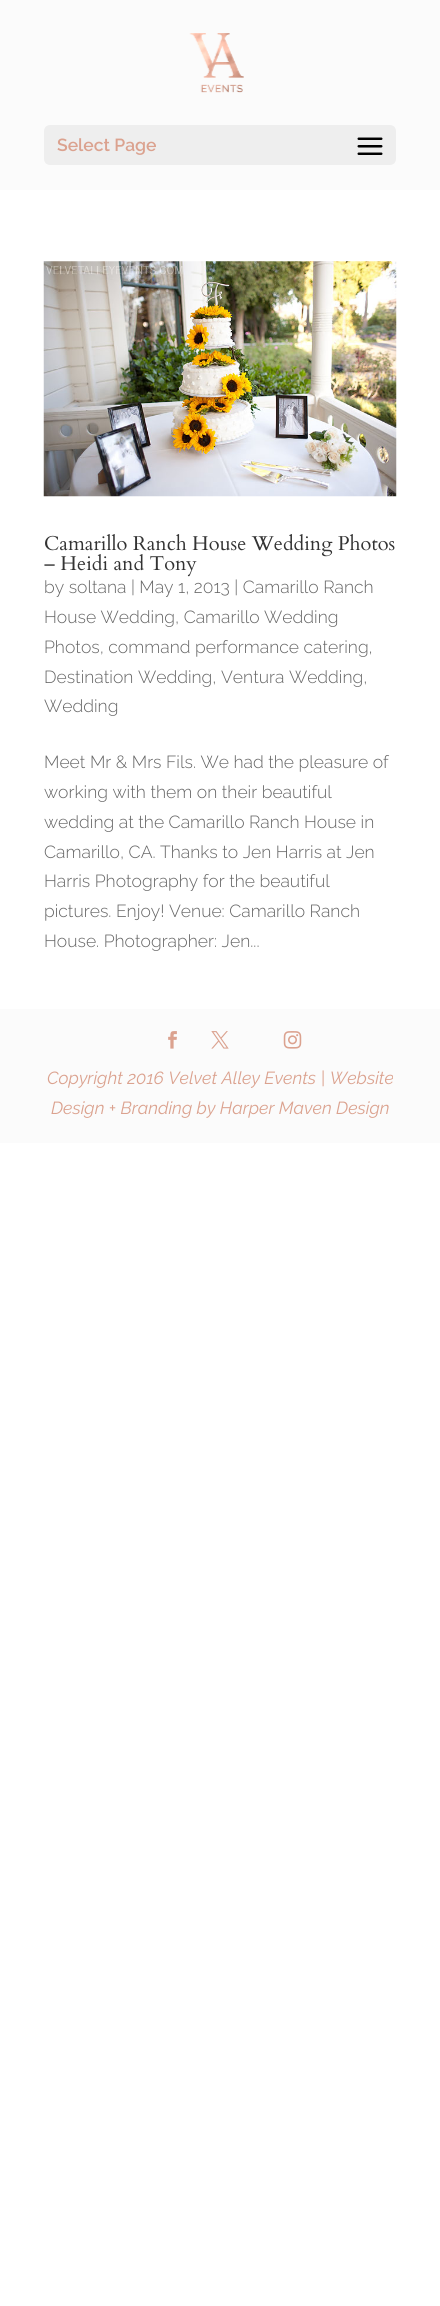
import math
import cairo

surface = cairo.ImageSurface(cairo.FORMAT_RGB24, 440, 2306)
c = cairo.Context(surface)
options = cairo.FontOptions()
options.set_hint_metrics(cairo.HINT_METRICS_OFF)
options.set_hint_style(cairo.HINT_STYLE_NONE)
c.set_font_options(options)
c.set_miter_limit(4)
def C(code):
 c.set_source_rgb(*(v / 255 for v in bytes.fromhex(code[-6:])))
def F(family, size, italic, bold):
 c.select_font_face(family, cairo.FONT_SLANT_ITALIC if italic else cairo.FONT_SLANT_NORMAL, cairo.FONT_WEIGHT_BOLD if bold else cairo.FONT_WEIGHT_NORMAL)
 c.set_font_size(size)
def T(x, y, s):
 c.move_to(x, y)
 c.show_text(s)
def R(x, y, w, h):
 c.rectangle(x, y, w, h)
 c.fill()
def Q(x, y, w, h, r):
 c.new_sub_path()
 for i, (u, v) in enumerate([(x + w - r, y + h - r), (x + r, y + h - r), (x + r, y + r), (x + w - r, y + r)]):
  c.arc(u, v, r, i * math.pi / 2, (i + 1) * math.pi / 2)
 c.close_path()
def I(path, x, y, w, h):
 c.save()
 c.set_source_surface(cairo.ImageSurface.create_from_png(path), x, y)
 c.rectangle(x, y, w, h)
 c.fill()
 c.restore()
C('ffffff')
c.paint()
C('fbfbfb')
R(0,0,440,190)
I('1.png',189,33,55,60)
C('eeeeee')
Q(44,125,352,40,6)
c.fill()
F('Raleway SemiBold',17.5,0,0)
C('dba28f')
T(57,151,'Select Page')
I('2.png',357,137,26,18)
I('3.png',43,261,354,236)
F('Cardo',20,0,0)
C('333333')
T(44,550,'Camarillo Ranch House Wedding Photos')
T(44,570,'– Heidi and Tony')
F('Raleway Light',17.5,0,0)
C('666666')
T(44,593,'by soltana | May 1, 2013 | Camarillo Ranch')
T(44,623,'House Wedding, Camarillo Wedding')
T(44,653,'Photos, command performance catering,')
T(44,683,'Destination Wedding, Ventura Wedding,')
T(44,712,'Wedding')
T(44,768,'Meet Mr & Mrs Fils. We had the pleasure of')
T(44,798,'working with them on their beautiful')
T(44,828,'wedding at the Camarillo Ranch House in')
T(44,858,'Camarillo, CA. Thanks to Jen Harris at Jen')
T(44,887,'Harris Photography for the beautiful')
T(44,917,'pictures. Enjoy! Venue: Camarillo Ranch')
T(44,947,'House. Photographer: Jen...')
C('fbfbfb')
R(0,1009,440,134)
I('4.png',168,1031,9,18)
I('5.png',211,1031,18,18)
I('6.png',283,1031,19,18)
F('Raleway',17.5,1,0)
C('dba28f')
T(47,1084,'Copyright 2016 Velvet Alley Events | Website')
T(51,1114,'Design + Branding by Harper Maven Design')
surface.write_to_png('o.png')
